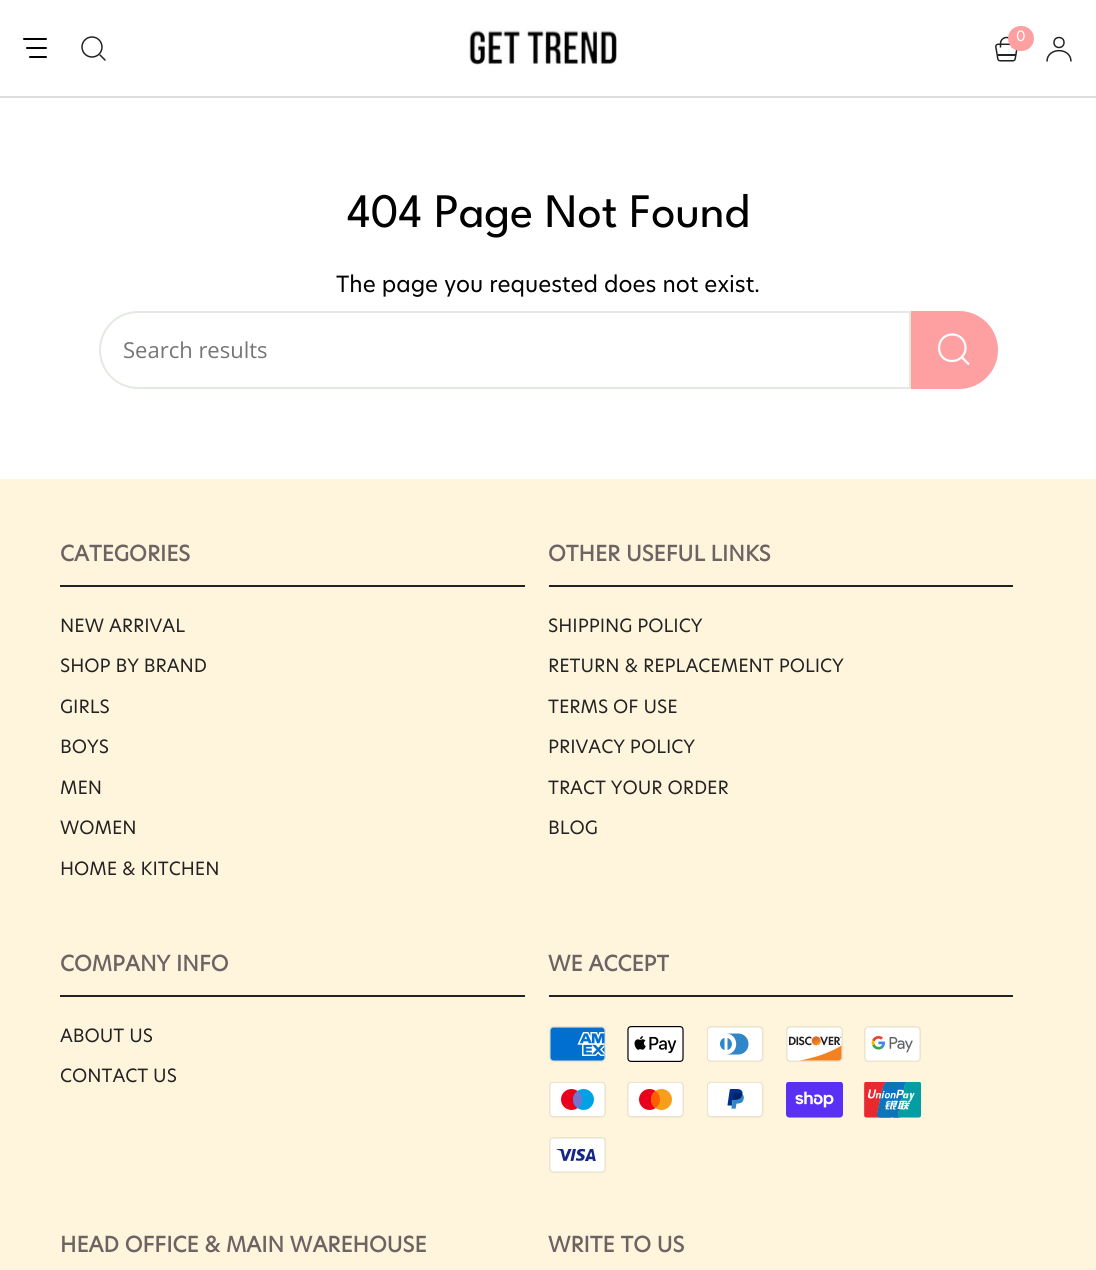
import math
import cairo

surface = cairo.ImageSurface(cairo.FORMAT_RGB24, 1096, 1270)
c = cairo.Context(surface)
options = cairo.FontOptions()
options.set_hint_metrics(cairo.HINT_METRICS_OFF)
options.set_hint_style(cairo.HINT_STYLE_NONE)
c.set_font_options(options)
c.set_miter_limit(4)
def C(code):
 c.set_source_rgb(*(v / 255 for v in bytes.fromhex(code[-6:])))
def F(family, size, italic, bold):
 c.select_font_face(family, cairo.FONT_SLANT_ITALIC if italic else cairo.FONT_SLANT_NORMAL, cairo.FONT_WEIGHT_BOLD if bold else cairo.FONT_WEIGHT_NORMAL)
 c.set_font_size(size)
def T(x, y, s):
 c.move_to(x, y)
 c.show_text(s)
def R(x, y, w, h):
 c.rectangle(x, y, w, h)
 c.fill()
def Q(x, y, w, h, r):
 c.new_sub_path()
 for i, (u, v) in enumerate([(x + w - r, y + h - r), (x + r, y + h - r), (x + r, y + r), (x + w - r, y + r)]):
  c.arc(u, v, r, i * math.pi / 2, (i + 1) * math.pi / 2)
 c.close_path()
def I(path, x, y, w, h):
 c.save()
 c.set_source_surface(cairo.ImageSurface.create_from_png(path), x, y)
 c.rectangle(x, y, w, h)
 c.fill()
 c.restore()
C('ffffff')
c.paint()
C('dddddd')
R(0,96,1096,2)
C('000000')
Q(23,38,24,2,1)
c.fill()
Q(26,47,21,2,1)
c.fill()
Q(29,56,18,2,1)
c.fill()
c.arc(92,47,10,0,2 * math.pi)
C('222222')
c.set_line_width(1.5)
c.stroke()
c.new_path()
c.move_to(100,55)
c.line_to(105,60)
c.set_line_cap(cairo.LINE_CAP_ROUND)
c.stroke()
I('1.png',469,29,150,37)
I('2.png',995,36,23,26)
C('fe9fa1')
Q(1008,26,26,25,12.5)
c.fill()
F('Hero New',14,0,0)
C('ffffff')
T(1016,41,'0')
c.new_path()
c.move_to(1071,61.5)
c.curve_to(1071,47,1047,47,1047,61.5)
C('222222')
c.set_line_cap(cairo.LINE_CAP_BUTT)
c.stroke()
c.arc(1059,42.5,5,0,2 * math.pi)
c.stroke()
F('League Spartan',48,0,0)
C('000000')
T(347,227,'404 Page Not Found')
F('Hero New',22,0,0)
T(336,292,'The page you requested does not exist.')
c.new_path()
c.move_to(138,312)
c.line_to(910,312)
c.line_to(910,388)
c.line_to(138,388)
c.curve_to(117,388,100,371,100,350)
c.curve_to(100,329,117,312,138,312)
c.close_path()
C('e4e9e1')
c.set_line_width(2)
c.stroke()
F('Open Sans',22,0,0)
C('757575')
T(123,358,'Search results')
C('fe9fa1')
c.new_path()
c.move_to(912,312)
c.line_to(959,312)
c.curve_to(980,312,997,329,997,350)
c.curve_to(997,371,980,388,959,388)
c.line_to(912,388)
c.close_path()
c.fill_preserve()
c.stroke()
c.new_path()
c.move_to(952.5,334.5)
c.curve_to(965,334.5,970.5,351,960,358.5)
c.curve_to(957.5,360.5,954.5,361,951.5,361)
c.curve_to(934.5,360.5,935,334.5,952.5,334.5)
c.close_path()
c.move_to(961.5,357)
c.line_to(969,364.5)
C('ffffff')
c.set_line_width(2.2)
c.stroke()
C('fff5dd')
R(0,479,1096,791)
C('222222')
R(60,585,465,2)
F('Hero New',21,0,1)
C('6e6363')
T(60,561,'CATEGORIES')
F('Hero New',18,0,0)
C('222222')
T(60,632,'NEW ARRIVAL')
T(60,672,'SHOP BY BRAND')
T(60,713,'GIRLS')
T(60,753,'BOYS')
T(60,794,'MEN')
T(60,834,'WOMEN')
T(60,875,'HOME & KITCHEN')
R(549,585,464,2)
F('Hero New',21,0,1)
C('6e6363')
T(548,561,'OTHER USEFUL LINKS')
F('Hero New',18,0,0)
C('222222')
T(548,632,'SHIPPING POLICY')
T(548,672,'RETURN & REPLACEMENT POLICY')
T(548,713,'TERMS OF USE')
T(548,753,'PRIVACY POLICY')
T(548,794,'TRACT YOUR ORDER')
T(548,834,'BLOG')
R(60,995,465,2)
F('Hero New',21,0,1)
C('6e6363')
T(60,971,'COMPANY INFO')
F('Hero New',18,0,0)
C('222222')
T(60,1042,'ABOUT US')
T(60,1082,'CONTACT US')
R(549,995,464,2)
F('Hero New',21,0,1)
C('6e6363')
T(548,971,'WE ACCEPT')
I('3.png',549,1026,57,36)
I('4.png',627,1026,57,36)
I('5.png',707,1026,57,36)
I('6.png',786,1026,57,36)
I('7.png',864,1026,57,36)
I('8.png',549,1082,57,36)
I('9.png',627,1082,57,36)
I('10.png',707,1082,57,36)
I('11.png',786,1082,57,36)
I('12.png',864,1082,57,36)
I('13.png',549,1137,57,36)
T(60,1252,'HEAD OFFICE & MAIN WAREHOUSE')
T(548,1252,'WRITE TO US')
surface.write_to_png('o.png')
